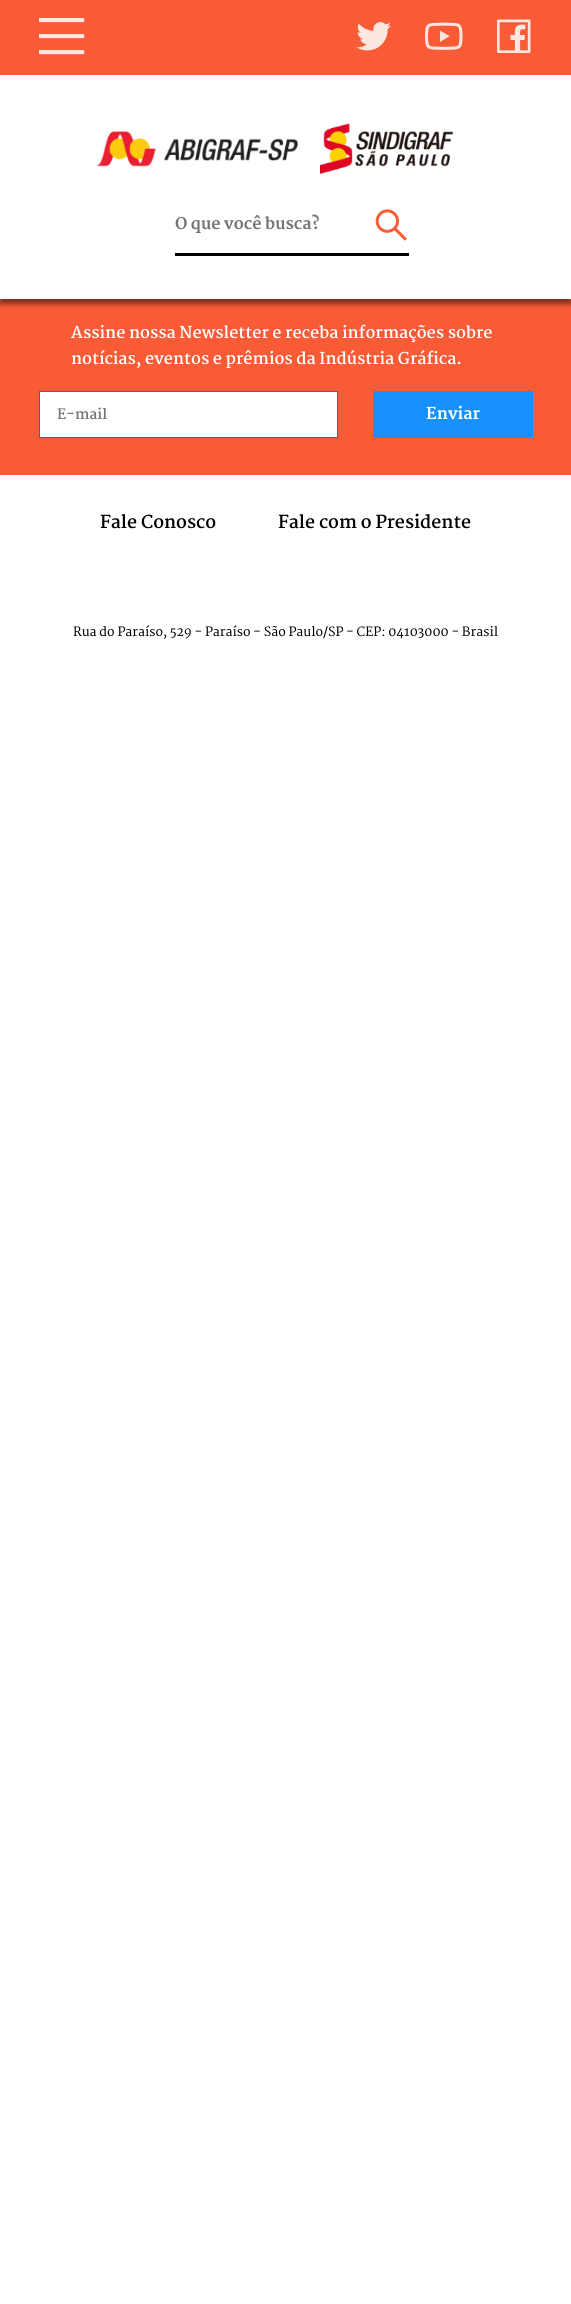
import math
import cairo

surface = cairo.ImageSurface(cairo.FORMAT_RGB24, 571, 2304)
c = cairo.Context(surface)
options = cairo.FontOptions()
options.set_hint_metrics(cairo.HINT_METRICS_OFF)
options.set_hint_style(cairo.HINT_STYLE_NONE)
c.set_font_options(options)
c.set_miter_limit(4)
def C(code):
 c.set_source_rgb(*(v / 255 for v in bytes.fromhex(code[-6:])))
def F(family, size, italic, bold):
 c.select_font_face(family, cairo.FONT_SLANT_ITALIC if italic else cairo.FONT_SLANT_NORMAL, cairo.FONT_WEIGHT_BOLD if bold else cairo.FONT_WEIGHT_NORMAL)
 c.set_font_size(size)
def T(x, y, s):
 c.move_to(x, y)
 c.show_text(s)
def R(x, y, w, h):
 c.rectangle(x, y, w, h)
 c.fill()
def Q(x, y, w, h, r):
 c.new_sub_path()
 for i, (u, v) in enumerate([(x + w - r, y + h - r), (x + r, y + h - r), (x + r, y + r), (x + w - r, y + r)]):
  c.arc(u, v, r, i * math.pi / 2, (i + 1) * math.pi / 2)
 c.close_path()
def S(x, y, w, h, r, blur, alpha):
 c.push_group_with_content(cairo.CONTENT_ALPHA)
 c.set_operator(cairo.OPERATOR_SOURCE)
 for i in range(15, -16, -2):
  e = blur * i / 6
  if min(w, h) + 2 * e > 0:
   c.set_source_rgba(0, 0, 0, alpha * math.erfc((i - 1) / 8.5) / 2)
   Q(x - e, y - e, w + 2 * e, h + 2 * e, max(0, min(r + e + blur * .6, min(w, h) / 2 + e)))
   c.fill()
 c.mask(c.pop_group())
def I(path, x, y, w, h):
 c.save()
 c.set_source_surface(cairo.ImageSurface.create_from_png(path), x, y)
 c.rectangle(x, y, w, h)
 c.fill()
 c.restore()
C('ffffff')
c.paint()
C('fa5b37')
R(0,299,571,176)
c.save()
c.set_fill_rule(cairo.FILL_RULE_EVEN_ODD)
c.new_path()
c.move_to(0,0)
c.line_to(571,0)
c.line_to(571,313)
c.line_to(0,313)
c.close_path()
c.move_to(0,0)
c.line_to(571,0)
c.line_to(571,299)
c.line_to(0,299)
c.close_path()
c.clip()
C('000000')
S(0,5,571,299,0,2.5,.5)
c.restore()
R(0,0,571,75)
I('1.png',39,18,46,37)
I('2.png',356,22,35,29)
I('3.png',425,22,38,28)
I('4.png',497,19,34,34)
I('5.png',96,131,202,36)
I('6.png',320,123,134,51)
C('000000')
R(175,253,234,3)
F('Martel ExtraBold',16,0,0)
C('757575')
T(175,229,'O que você busca?')
I('7.png',375,209,32,32)
F('Martel',16,0,1)
C('ffffff')
T(71,338,'Assine nossa Newsletter e receba informações sobre')
T(71,364,'notícias, eventos e prêmios da Indústria Gráfica.')
c.rectangle(39.5,391.5,298,46)
c.fill_preserve()
C('635e5e')
c.set_line_width(1)
c.stroke()
F('Martel',14,0,1)
C('757575')
T(57,419,'E-mail')
C('1890ff')
R(373,391,160,47)
F('Martel ExtraBold',16,0,0)
C('ffffff')
T(426,419,'Enviar')
F('Martel',17.5,0,1)
C('000000')
T(100,528,'Fale Conosco')
T(278,528,'Fale com o Presidente')
F('Martel SemiBold',12.5,0,0)
T(73,636,'Rua do Paraíso, 529 - Paraíso - São Paulo/SP - CEP: 04103000 - Brasil')
surface.write_to_png('o.png')
